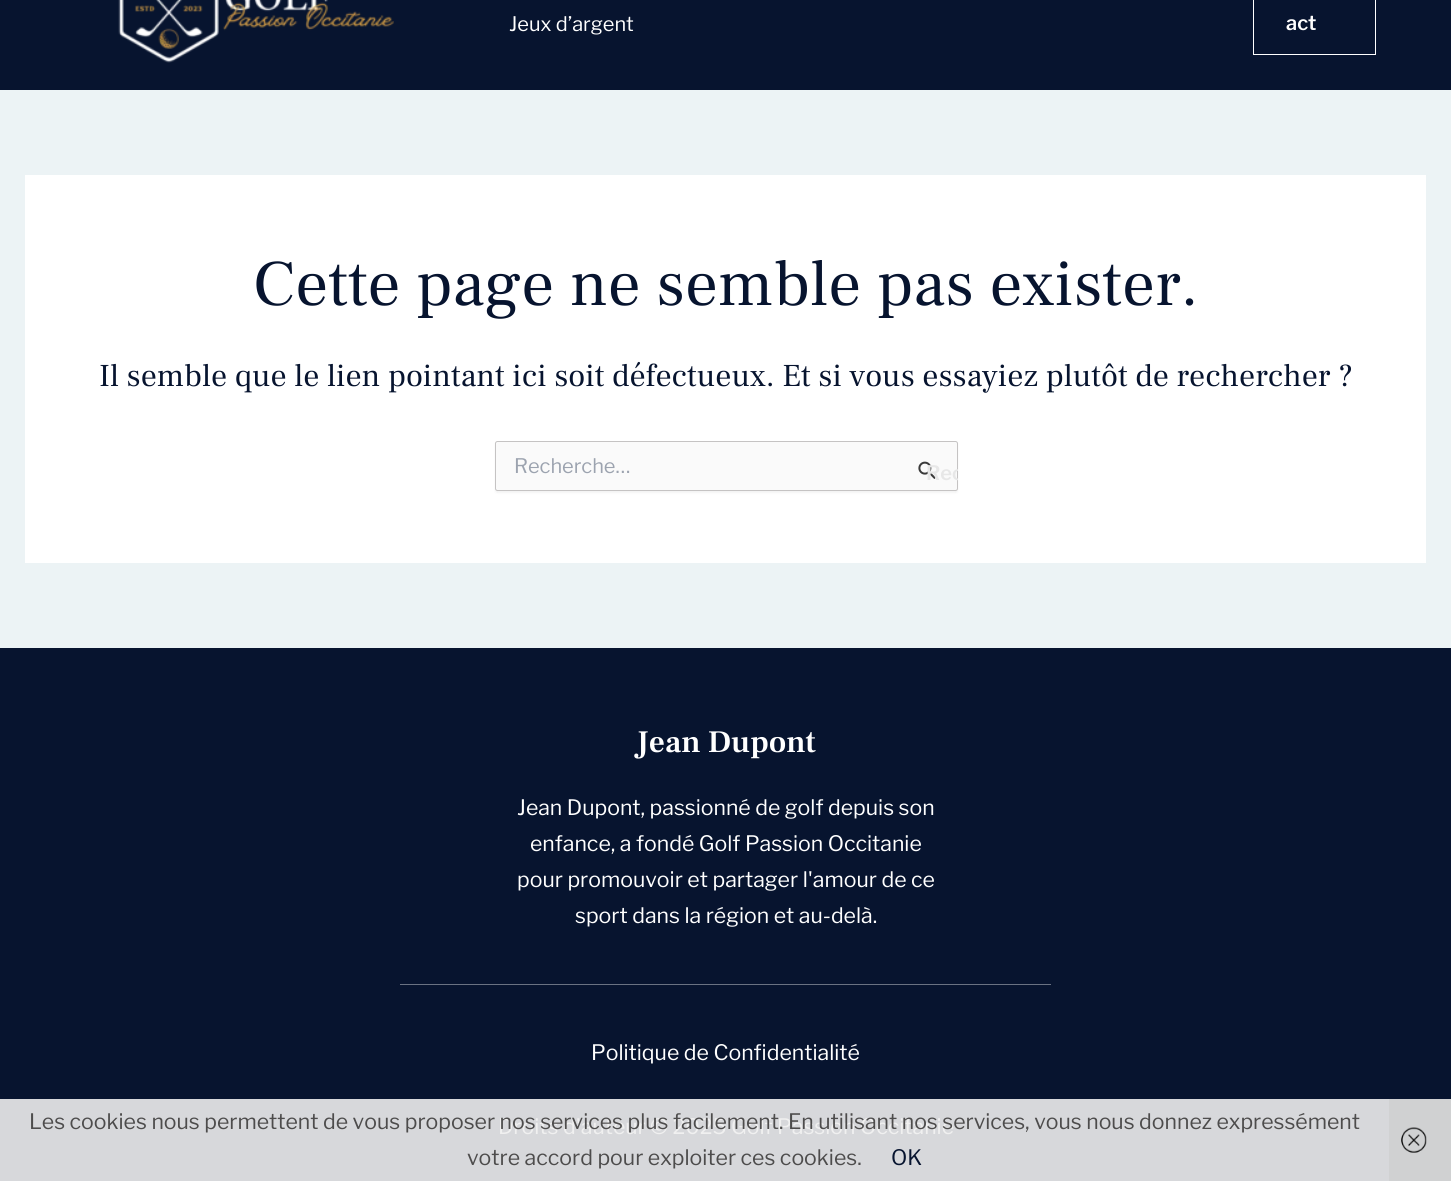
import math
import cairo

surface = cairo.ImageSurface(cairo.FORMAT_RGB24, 1451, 1181)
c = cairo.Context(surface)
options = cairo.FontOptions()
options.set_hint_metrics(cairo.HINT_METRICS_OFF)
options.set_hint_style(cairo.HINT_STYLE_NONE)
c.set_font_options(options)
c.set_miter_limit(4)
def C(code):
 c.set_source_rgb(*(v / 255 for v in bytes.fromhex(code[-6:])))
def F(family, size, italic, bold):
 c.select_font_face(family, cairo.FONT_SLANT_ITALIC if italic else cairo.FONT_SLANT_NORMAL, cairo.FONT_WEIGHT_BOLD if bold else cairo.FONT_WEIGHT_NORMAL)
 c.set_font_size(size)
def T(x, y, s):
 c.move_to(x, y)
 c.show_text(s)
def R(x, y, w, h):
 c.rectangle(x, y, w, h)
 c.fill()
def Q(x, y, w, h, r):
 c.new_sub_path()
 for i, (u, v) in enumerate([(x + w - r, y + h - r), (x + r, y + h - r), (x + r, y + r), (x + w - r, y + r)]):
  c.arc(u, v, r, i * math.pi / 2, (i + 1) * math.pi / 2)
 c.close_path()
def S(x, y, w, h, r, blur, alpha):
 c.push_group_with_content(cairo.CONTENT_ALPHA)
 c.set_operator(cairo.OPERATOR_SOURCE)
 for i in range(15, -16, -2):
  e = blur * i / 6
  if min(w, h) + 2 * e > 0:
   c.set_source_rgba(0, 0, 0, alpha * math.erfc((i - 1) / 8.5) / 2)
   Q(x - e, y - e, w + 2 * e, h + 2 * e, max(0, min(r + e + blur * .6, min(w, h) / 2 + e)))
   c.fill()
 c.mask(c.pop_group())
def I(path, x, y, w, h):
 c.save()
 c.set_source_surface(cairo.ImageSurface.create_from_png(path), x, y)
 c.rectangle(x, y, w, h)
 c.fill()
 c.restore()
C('ecf3f5')
c.paint()
C('07142f')
R(0,0,1451,90)
I('1.png',118,0,276,63)
F('Libre Franklin',20,0,0)
C('ffffff')
T(509,31,'Jeux d’argent')
c.rectangle(1253.5,-.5,122,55)
c.set_line_width(1)
c.stroke()
F('Libre Franklin SemiBold',20,0,0)
T(1286,30,'act')
R(25,175,1401,388)
F('Frank Ruhl Libre',65,0,0)
C('07142f')
T(253,305,'Cette page ne semble pas exister.')
F('Frank Ruhl Libre',31.9,0,0)
T(99,386,'Il semble que le lien pointant ici soit défectueux. Et si vous essayiez plutôt de rechercher ?')
C('000000')
S(495,443,463,50,2.5,1,.05)
C('fafafa')
Q(495.5,441.5,462,49,2)
c.fill_preserve()
C('c5c3c3')
c.stroke()
F('Libre Franklin',20,0,0)
C('9ca3af')
T(514,473,'Recherche…')
I('2.png',918,461,18,18)
c.save()
Q(901,441,57,65,2.5)
c.clip()
F('Libre Franklin SemiBold',20,0,0)
C('e7e7e7')
T(926,480,'Rec')
c.restore()
C('07142f')
R(0,648,1451,451)
C('d7d8db')
R(0,1099,1389,82)
F('Frank Ruhl Libre SemiBold',31.25,0,0)
C('ffffff')
T(636,752,'Jean Dupont')
F('Libre Franklin',21.25,0,0)
T(517,815,'Jean Dupont, passionné de golf depuis son')
T(530,851,'enfance, a fondé Golf Passion Occitanie')
T(517,887,'pour promouvoir et partager l\'amour de ce')
T(575,923,'sport dans la région et au-delà.')
C('6a7282')
R(400,984,651,1)
C('ffffff')
T(591,1060,'Politique de Confidentialité')
C('f0f0f0')
T(498,1134,'Droits d\'auteur © 2025 Golf Passion Occitanie')
C('4d4c4c')
T(29,1129,'Les cookies nous permettent de vous proposer nos services plus facilement. En utilisant nos services, vous nous donnez expressément')
T(467,1165,'votre accord pour exploiter ces cookies.')
C('07142f')
T(891,1165,'OK')
C('d0d1d2')
R(1389,1099,62,82)
I('3.png',1401,1127,26,26)
surface.write_to_png('o.png')
